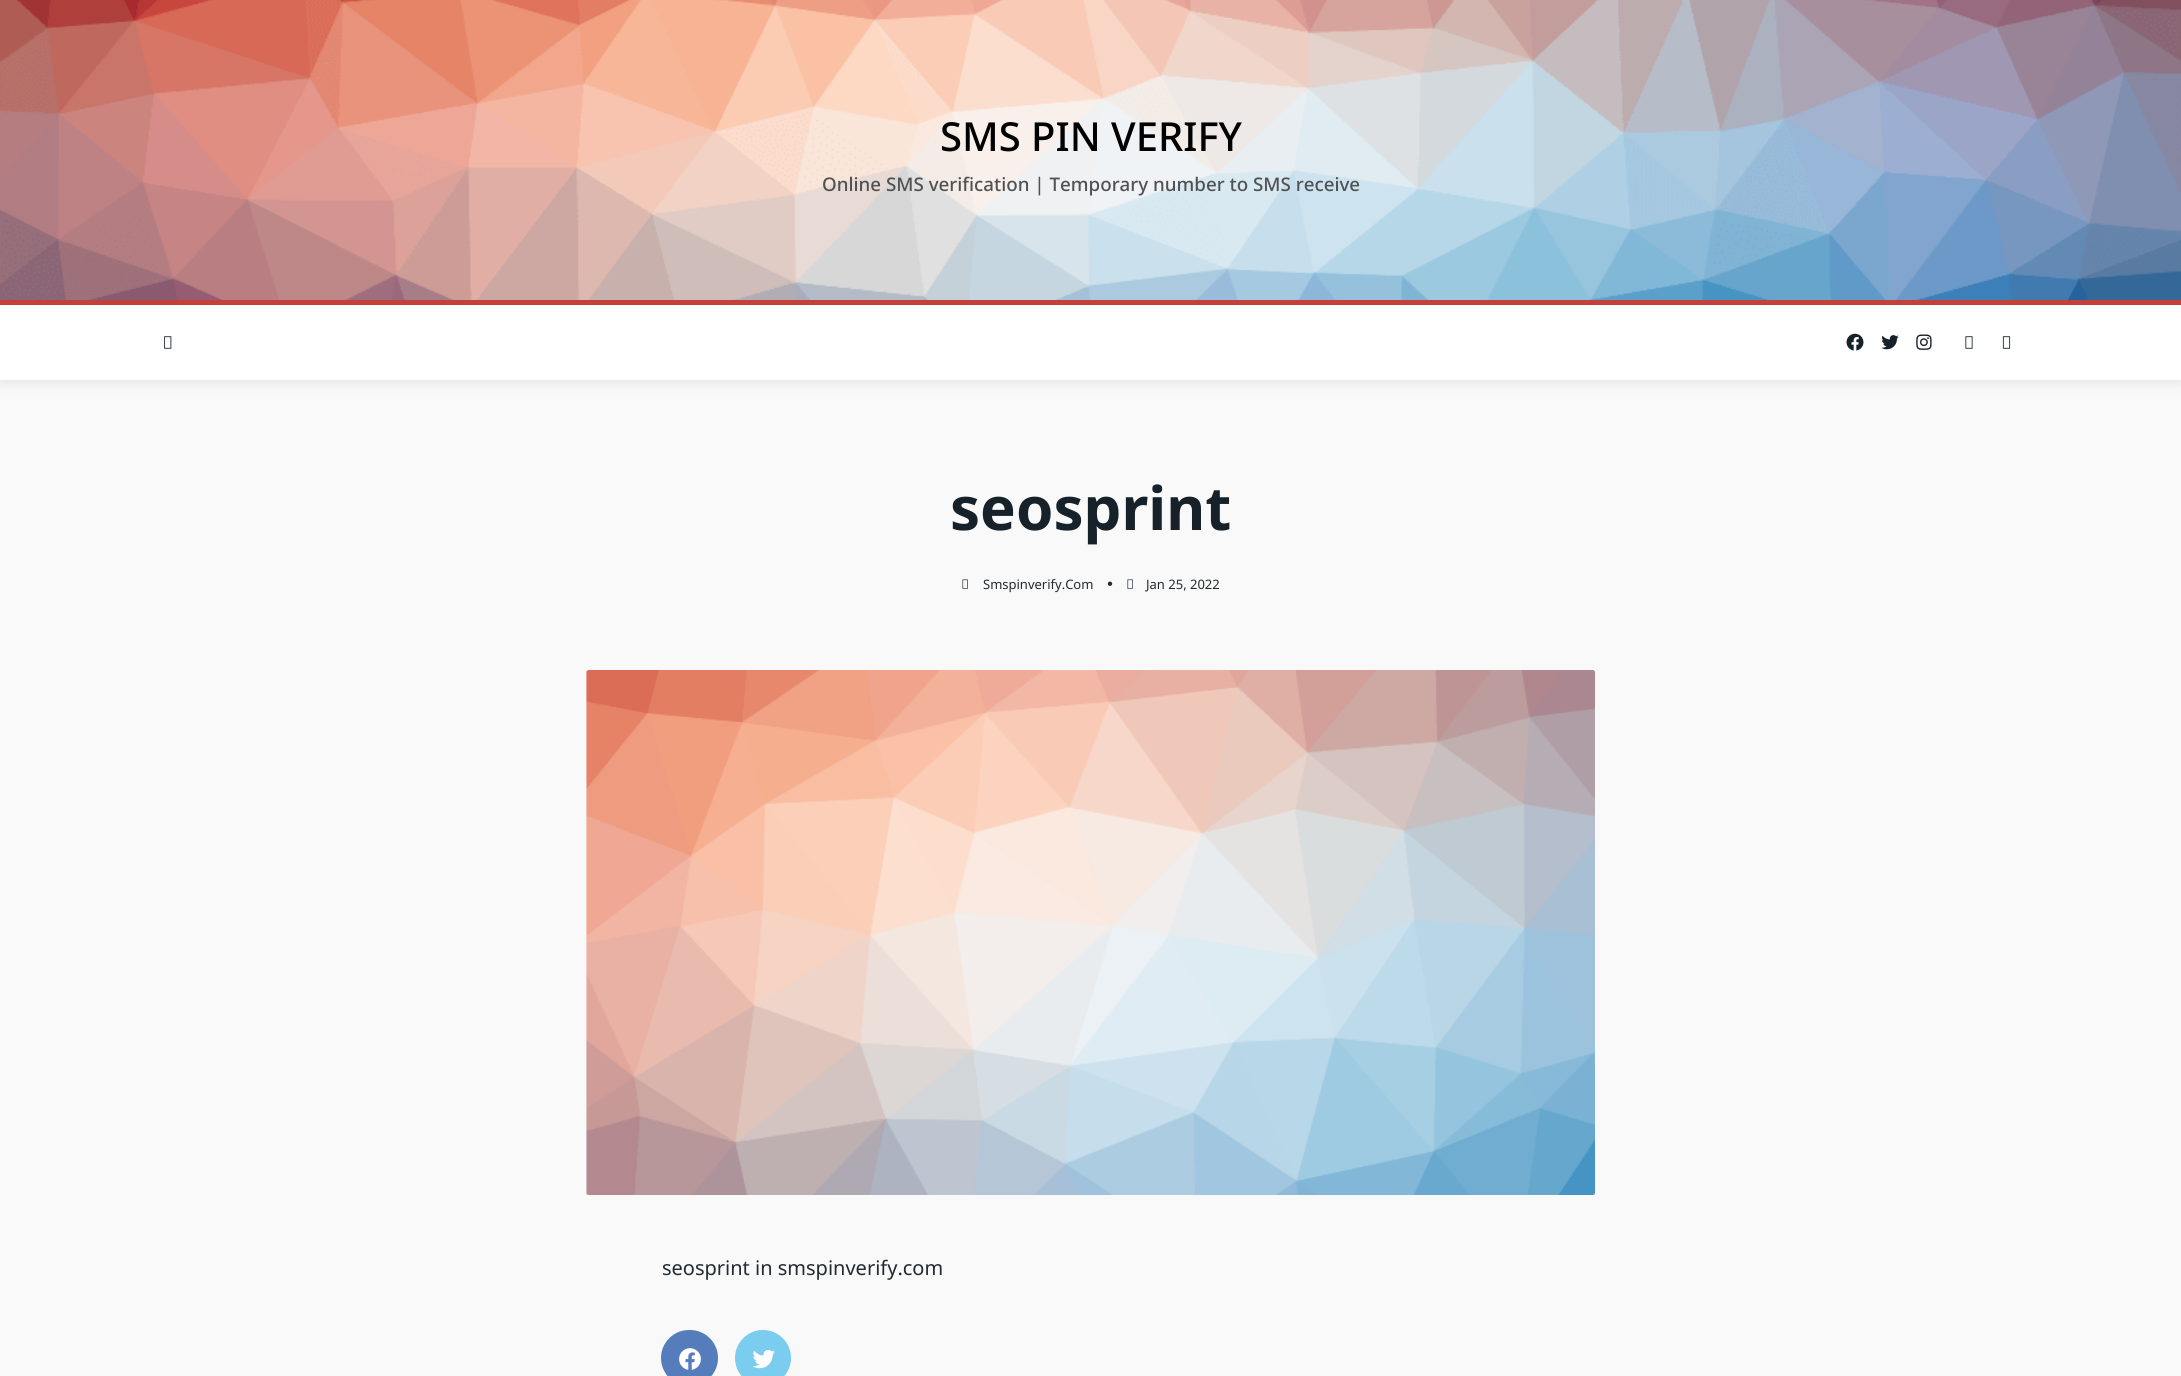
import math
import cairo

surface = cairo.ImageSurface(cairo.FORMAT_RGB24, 2181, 1376)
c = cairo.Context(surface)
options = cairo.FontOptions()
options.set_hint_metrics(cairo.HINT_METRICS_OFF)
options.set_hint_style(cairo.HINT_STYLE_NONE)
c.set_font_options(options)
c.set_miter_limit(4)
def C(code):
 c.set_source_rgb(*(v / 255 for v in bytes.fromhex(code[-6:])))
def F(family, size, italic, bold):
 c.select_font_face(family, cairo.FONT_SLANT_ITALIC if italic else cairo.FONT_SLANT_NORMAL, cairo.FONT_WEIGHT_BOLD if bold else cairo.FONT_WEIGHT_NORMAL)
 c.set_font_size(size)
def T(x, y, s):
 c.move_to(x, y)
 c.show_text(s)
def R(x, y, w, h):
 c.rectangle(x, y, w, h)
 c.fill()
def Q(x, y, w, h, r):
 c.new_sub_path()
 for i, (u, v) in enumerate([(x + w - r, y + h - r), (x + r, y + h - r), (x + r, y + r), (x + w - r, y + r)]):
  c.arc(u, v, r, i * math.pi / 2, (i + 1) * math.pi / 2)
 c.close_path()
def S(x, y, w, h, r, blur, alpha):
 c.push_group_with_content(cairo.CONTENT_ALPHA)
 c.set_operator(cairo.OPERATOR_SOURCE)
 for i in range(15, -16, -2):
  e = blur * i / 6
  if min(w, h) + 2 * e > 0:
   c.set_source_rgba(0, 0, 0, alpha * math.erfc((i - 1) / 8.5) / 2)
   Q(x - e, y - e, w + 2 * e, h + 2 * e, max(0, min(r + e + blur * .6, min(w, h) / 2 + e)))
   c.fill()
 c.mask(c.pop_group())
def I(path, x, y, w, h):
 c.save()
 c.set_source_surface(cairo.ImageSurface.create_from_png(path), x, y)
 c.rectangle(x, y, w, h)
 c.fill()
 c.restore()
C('f8f9f8')
c.paint()
C('2c3e50')
S(0,303,2181,80,0,6,.1)
I('1.png',0,0,2181,300)
F('Noto Sans Medium',40,0,0)
C('000000')
T(940,151,'SMS PIN VERIFY')
F('Noto Sans Medium',18.75,0,0)
C('505152')
T(822,191,'Online SMS verification | Temporary number to SMS receive')
C('ffffff')
R(0,305,2181,75)
C('c4403b')
R(0,300,2181,5)
I('2.png',164,336,8,13)
I('3.png',1846,333,18,18)
I('4.png',1881,335,18,15)
I('5.png',1916,334,16,16)
I('6.png',1965,336,8,13)
I('7.png',2002,336,9,13)
F('Noto Sans',60,0,1)
C('17212a')
T(950,530,'seosprint')
I('8.png',962,579,6,10)
F('Noto Sans',13,0,0)
C('212a33')
T(983,589,'Smspinverify.Com')
I('9.png',1107,581,6,5)
I('8.png',1127,579,6,10)
T(1146,589,'Jan 25, 2022')
I('10.png',586,670,1009,525)
F('Noto Sans',20,0,0)
T(662,1275,'seosprint in smspinverify.com')
C('557dbc')
Q(661,1330,57,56,28)
c.fill()
I('11.png',679,1348,22,22)
C('7acdee')
c.arc(763,1358,28,0,2 * math.pi)
c.fill()
I('12.png',752,1349,23,20)
surface.write_to_png('o.png')
